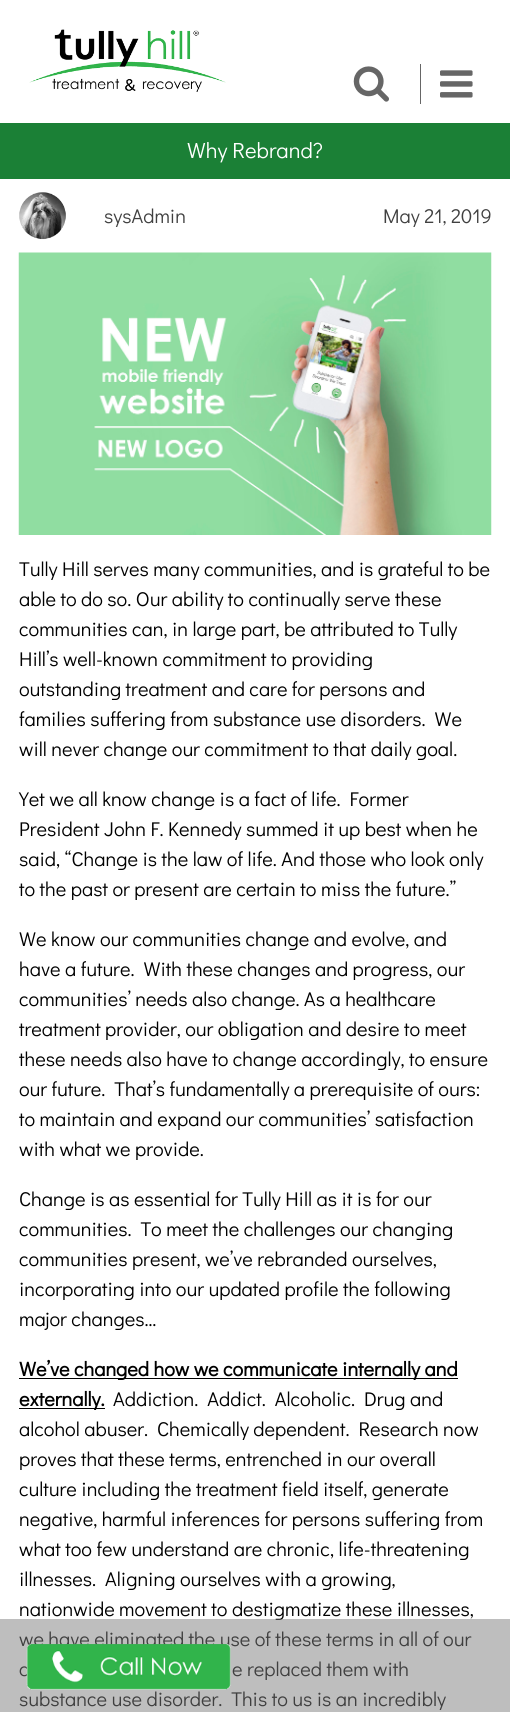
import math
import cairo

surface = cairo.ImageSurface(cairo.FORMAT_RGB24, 510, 1712)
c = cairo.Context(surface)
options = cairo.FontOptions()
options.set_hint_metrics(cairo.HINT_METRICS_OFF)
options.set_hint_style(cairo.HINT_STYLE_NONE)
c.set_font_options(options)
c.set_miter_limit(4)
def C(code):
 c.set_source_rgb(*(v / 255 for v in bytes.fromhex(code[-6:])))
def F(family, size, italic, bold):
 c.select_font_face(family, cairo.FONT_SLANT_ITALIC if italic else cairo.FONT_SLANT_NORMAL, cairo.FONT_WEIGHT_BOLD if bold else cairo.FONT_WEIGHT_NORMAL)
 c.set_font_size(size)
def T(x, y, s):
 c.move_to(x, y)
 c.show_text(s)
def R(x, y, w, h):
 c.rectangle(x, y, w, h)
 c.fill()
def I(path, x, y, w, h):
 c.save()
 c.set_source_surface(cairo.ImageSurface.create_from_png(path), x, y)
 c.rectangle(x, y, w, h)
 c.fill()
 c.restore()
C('ffffff')
c.paint()
I('1.png',29,29,197,63)
C('666666')
R(420,64,1,40)
I('2.png',353,66,36,36)
I('3.png',440,70,33,28)
C('1b8036')
R(0,123,510,56)
F('Didact Gothic',22,0,0)
C('ffffff')
T(187,158,'Why Rebrand?')
I('4.png',19,192,47,48)
F('Didact Gothic',20,0,0)
C('404040')
T(104,223,'sysAdmin')
T(383,223,'May 21, 2019')
I('5.png',18,252,474,283)
C('000000')
T(19,576,'Tully Hill serves many communities, and is grateful to be')
T(19,606,'able to do so. Our ability to continually serve these')
T(19,636,'communities can, in large part, be attributed to Tully')
T(19,666,'Hill’s well-known commitment to providing')
T(19,696,'outstanding treatment and care for persons and')
T(19,726,'families suffering from substance use disorders.  We')
T(19,756,'will never change our commitment to that daily goal.')
T(19,806,'Yet we all know change is a fact of life.  Former')
T(19,836,'President John F. Kennedy summed it up best when he')
T(19,866,'said, “Change is the law of life. And those who look only')
T(19,896,'to the past or present are certain to miss the future.”')
T(19,946,'We know our communities change and evolve, and')
T(19,976,'have a future.  With these changes and progress, our')
T(19,1006,'communities’ needs also change. As a healthcare')
T(19,1036,'treatment provider, our obligation and desire to meet')
T(19,1066,'these needs also have to change accordingly, to ensure')
T(19,1096,'our future.  That’s fundamentally a prerequisite of ours:')
T(19,1126,'to maintain and expand our communities’ satisfaction')
T(19,1156,'with what we provide.')
T(19,1206,'Change is as essential for Tully Hill as it is for our')
T(19,1236,'communities.  To meet the challenges our changing')
T(19,1266,'communities present, we’ve rebranded ourselves,')
T(19,1296,'incorporating into our updated profile the following')
T(19,1326,'major changes…')
R(19,1378,439,1)
F('Didact Gothic',20,0,1)
T(19,1376,'We’ve changed how we communicate internally and')
R(19,1408,86,1)
T(19,1406,'externally.')
F('Didact Gothic',20,0,0)
T(113,1406,'Addiction.  Addict.  Alcoholic.  Drug and')
T(19,1436,'alcohol abuser.  Chemically dependent.  Research now')
T(19,1466,'proves that these terms, entrenched in our overall')
T(19,1496,'culture including the treatment field itself, generate')
T(19,1526,'negative, harmful inferences for persons suffering from')
T(19,1556,'what too few understand are chronic, life-threatening')
T(19,1586,'illnesses.  Aligning ourselves with a growing,')
T(19,1616,'nationwide movement to destigmatize these illnesses,')
T(19,1646,'we have eliminated the use of these terms in all of our')
T(19,1676,'c')
T(232,1676,'e replaced them with')
T(19,1706,'substance use disorder.  This to us is an incredibly')
c.set_source_rgba(0.498,0.498,0.498,0.5)
R(0,1619,510,93)
I('6.png',26,1644,205,46)
surface.write_to_png('o.png')
